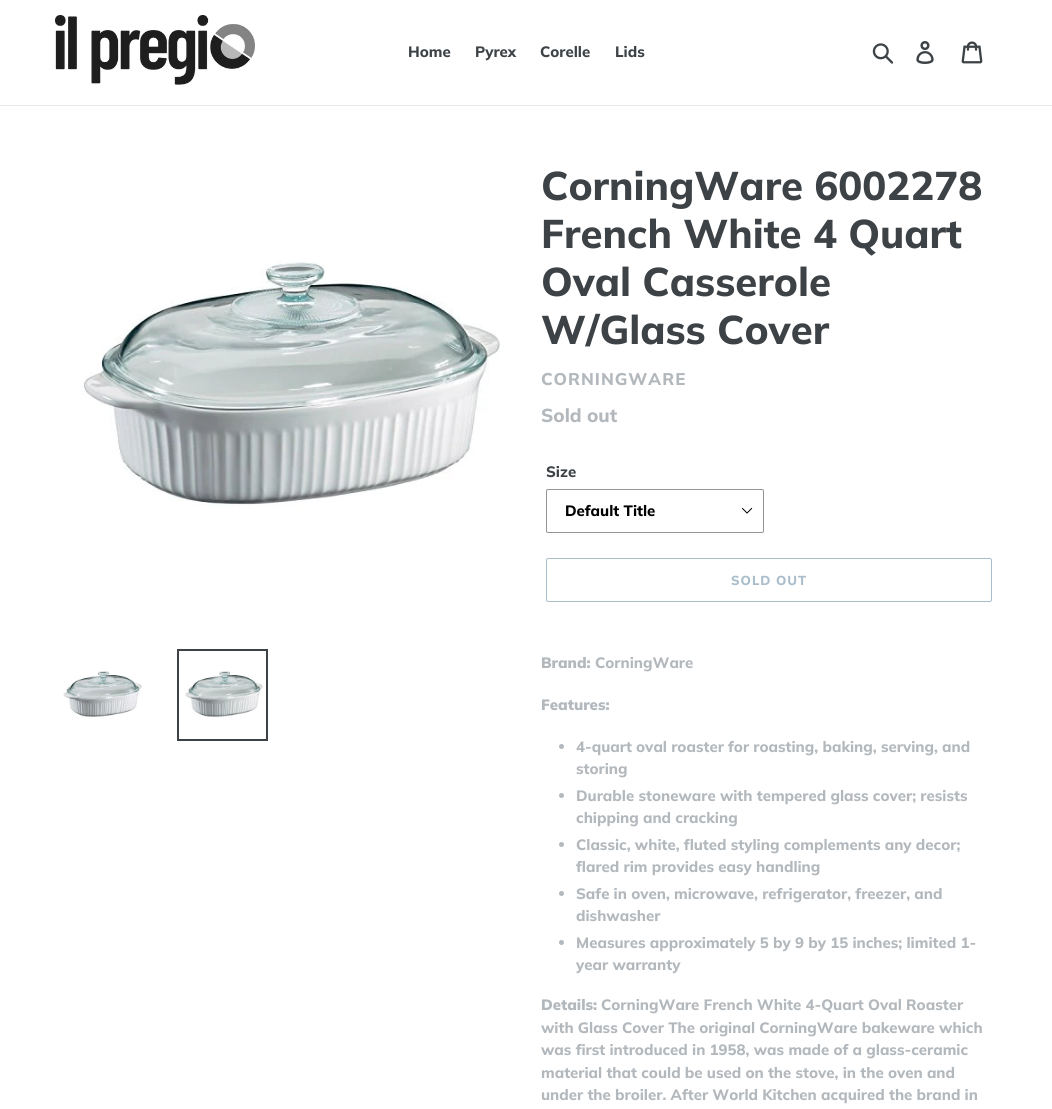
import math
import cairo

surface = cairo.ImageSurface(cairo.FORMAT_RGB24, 1052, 1109)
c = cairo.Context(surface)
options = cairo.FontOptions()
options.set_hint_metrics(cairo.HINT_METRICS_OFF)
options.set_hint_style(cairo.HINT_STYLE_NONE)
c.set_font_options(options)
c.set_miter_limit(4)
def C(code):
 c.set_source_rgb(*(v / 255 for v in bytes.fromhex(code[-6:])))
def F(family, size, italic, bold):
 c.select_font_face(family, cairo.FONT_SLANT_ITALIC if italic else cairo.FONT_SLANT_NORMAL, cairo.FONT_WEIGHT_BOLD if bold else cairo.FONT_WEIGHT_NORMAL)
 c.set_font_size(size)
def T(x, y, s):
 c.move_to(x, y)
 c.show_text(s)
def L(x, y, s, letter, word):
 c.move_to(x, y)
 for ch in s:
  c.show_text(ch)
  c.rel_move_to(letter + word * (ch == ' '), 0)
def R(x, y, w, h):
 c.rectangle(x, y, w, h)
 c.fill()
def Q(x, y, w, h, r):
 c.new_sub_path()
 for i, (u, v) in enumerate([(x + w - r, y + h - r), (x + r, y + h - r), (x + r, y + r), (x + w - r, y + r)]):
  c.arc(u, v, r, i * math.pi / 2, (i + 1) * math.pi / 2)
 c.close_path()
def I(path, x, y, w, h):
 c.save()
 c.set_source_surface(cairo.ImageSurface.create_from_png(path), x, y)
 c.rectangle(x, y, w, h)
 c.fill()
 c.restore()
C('ffffff')
c.paint()
C('e8e9eb')
R(0,105,1052,1)
I('1.png',55,15,200,70)
F('Muli ExtraBold',15,0,0)
C('3d4246')
T(408,57,'Home')
T(475,57,'Pyrex')
T(540,57,'Corelle')
T(615,57,'Lids')
I('2.png',872,43,22,21)
I('3.png',916,41,18,23)
I('4.png',961,41,22,23)
I('5.png',81,261,419,247)
I('6.png',63,671,79,47)
c.rectangle(178,650,89,90)
c.stroke()
I('7.png',185,671,78,47)
F('Muli ExtraBold',40,0,0)
T(541,200,'CorningWare 6002278')
T(541,248,'French White 4 Quart')
T(541,296,'Oval Casserole')
T(541,344,'W/Glass Cover')
F('Muli ExtraBold',16.9,0,0)
C('b3b8bd')
L(541,385,'CORNINGWARE',1,0)
F('Muli ExtraBold',18.75,0,0)
T(541,422,'Sold out')
F('Muli ExtraBold',15,0,0)
C('3d4246')
T(546,477,'Size')
I('8.png',741,507,12,7)
Q(546.5,489.5,217,43,1.5)
C('949494')
c.set_line_width(1)
c.stroke()
C('000000')
T(565,516,'Default Title')
Q(546.5,558.5,445,43,1.5)
C('aabdcb')
c.stroke()
F('Muli ExtraBold',13,0,0)
L(731,585,'SOLD OUT',1,0)
F('Muli Black',15,0,0)
C('b3b8bd')
T(541,668,'Brand:')
F('Muli ExtraBold',15,0,0)
T(595,668,'CorningWare')
F('Muli Black',15,0,0)
T(541,710,'Features:')
c.new_path()
c.arc(561.5,746.5,2.5,0,2 * math.pi)
c.fill()
F('Muli ExtraBold',15,0,0)
T(576,752,'4-quart oval roaster for roasting, baking, serving, and')
T(576,774,'storing')
c.new_path()
c.arc(561.5,795.5,2.5,0,2 * math.pi)
c.fill()
T(576,801,'Durable stoneware with tempered glass cover; resists')
T(576,823,'chipping and cracking')
c.new_path()
c.arc(561.5,844.5,2.5,0,2 * math.pi)
c.fill()
T(576,850,'Classic, white, fluted styling complements any decor;')
T(576,872,'flared rim provides easy handling')
c.new_path()
c.arc(561.5,893.5,2.5,0,2 * math.pi)
c.fill()
T(576,899,'Safe in oven, microwave, refrigerator, freezer, and')
T(576,921,'dishwasher')
c.new_path()
c.arc(561.5,942.5,2.5,0,2 * math.pi)
c.fill()
T(576,948,'Measures approximately 5 by 9 by 15 inches; limited 1-')
T(576,970,'year warranty')
F('Muli Black',15,0,0)
T(541,1010,'Details:')
F('Muli ExtraBold',15,0,0)
T(601,1010,'CorningWare French White 4-Quart Oval Roaster')
T(541,1033,'with Glass Cover The original CorningWare bakeware which')
T(541,1055,'was first introduced in 1958, was made of a glass-ceramic')
T(541,1078,'material that could be used on the stove, in the oven and')
T(541,1100,'under the broiler. After World Kitchen acquired the brand in')
surface.write_to_png('o.png')
